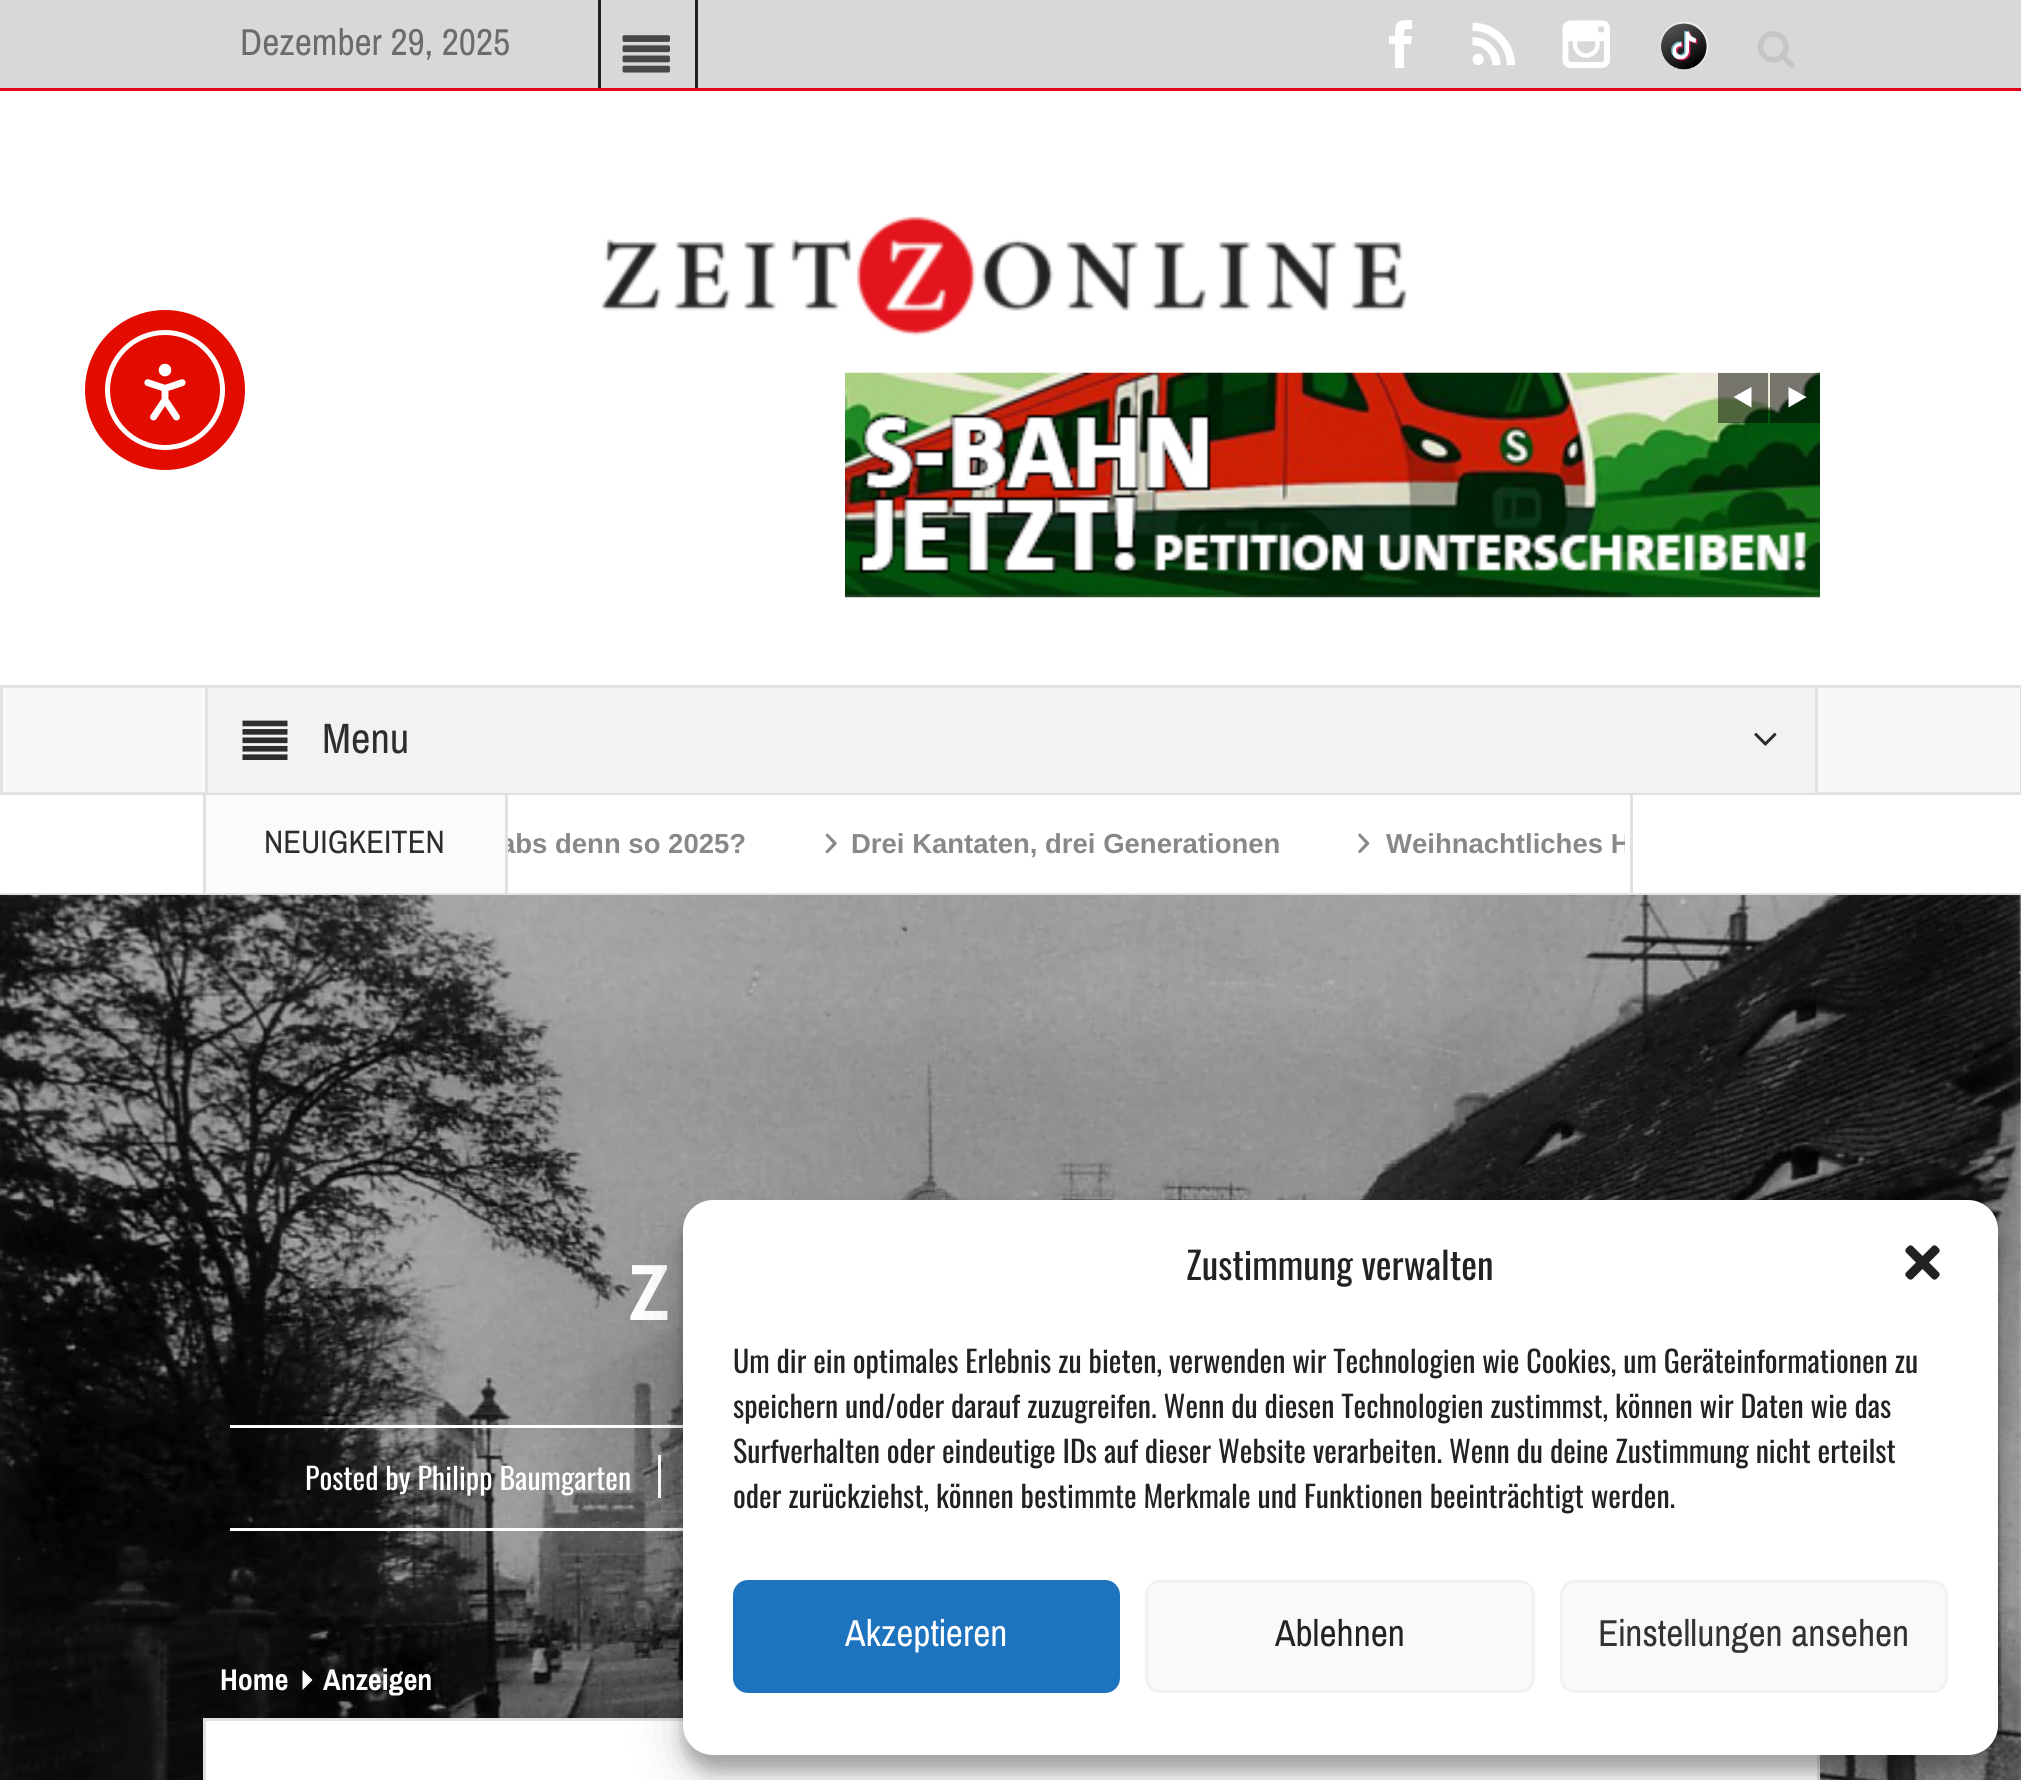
import math
import cairo

surface = cairo.ImageSurface(cairo.FORMAT_RGB24, 2021, 1780)
c = cairo.Context(surface)
options = cairo.FontOptions()
options.set_hint_metrics(cairo.HINT_METRICS_OFF)
options.set_hint_style(cairo.HINT_STYLE_NONE)
c.set_font_options(options)
c.set_miter_limit(4)
def C(code):
 c.set_source_rgb(*(v / 255 for v in bytes.fromhex(code[-6:])))
def F(family, size, italic, bold):
 c.select_font_face(family, cairo.FONT_SLANT_ITALIC if italic else cairo.FONT_SLANT_NORMAL, cairo.FONT_WEIGHT_BOLD if bold else cairo.FONT_WEIGHT_NORMAL)
 c.set_font_size(size)
def T(x, y, s):
 c.move_to(x, y)
 c.show_text(s)
def R(x, y, w, h):
 c.rectangle(x, y, w, h)
 c.fill()
def Q(x, y, w, h, r):
 c.new_sub_path()
 for i, (u, v) in enumerate([(x + w - r, y + h - r), (x + r, y + h - r), (x + r, y + r), (x + w - r, y + r)]):
  c.arc(u, v, r, i * math.pi / 2, (i + 1) * math.pi / 2)
 c.close_path()
def S(x, y, w, h, r, blur, alpha):
 c.push_group_with_content(cairo.CONTENT_ALPHA)
 c.set_operator(cairo.OPERATOR_SOURCE)
 for i in range(15, -16, -2):
  e = blur * i / 6
  if min(w, h) + 2 * e > 0:
   c.set_source_rgba(0, 0, 0, alpha * math.erfc((i - 1) / 8.5) / 2)
   Q(x - e, y - e, w + 2 * e, h + 2 * e, max(0, min(r + e + blur * .6, min(w, h) / 2 + e)))
   c.fill()
 c.mask(c.pop_group())
def I(path, x, y, w, h):
 c.save()
 c.set_source_surface(cairo.ImageSurface.create_from_png(path), x, y)
 c.rectangle(x, y, w, h)
 c.fill()
 c.restore()
C('ffffff')
c.paint()
C('e30c00')
c.arc(165,390,80,0,2 * math.pi)
c.fill()
c.arc(165,390,57.5,0,2 * math.pi)
C('ffffff')
c.set_line_width(5)
c.stroke()
I('1.png',144,363,42,58)
C('d8d8d8')
R(0,0,2021,88)
C('e2001a')
R(0,88,2021,3)
F('Archivo Narrow',37.5,0,0)
C('6b6b6b')
T(240,55,'Dezember 29, 2025')
C('222222')
R(695,0,3,88)
R(598,0,3,88)
I('2.png',622,35,48,38)
C('ffffff')
c.new_path()
c.move_to(1404,68)
c.line_to(1395,68)
c.line_to(1395,44)
c.line_to(1389,44)
c.line_to(1389,36)
c.line_to(1395,36)
c.curve_to(1395,21,1397,20,1412,20)
c.line_to(1412,29)
c.curve_to(1404,29,1404,28,1404,36)
c.line_to(1412,36)
c.line_to(1411,44)
c.line_to(1404,44)
c.close_path()
c.fill()
I('3.png',1472,22,43,44)
I('4.png',1562,20,48,48)
I('5.png',1659,21,50,50)
I('6.png',1757,31,38,37)
I('7.png',601,216,807,120)
I('8.png',845,372,975,226)
c.set_source_rgba(0,0,0,0.5)
R(1718,373,50,50)
C('ffffff')
c.new_path()
c.move_to(1751.5,387)
c.line_to(1751.5,407.5)
c.line_to(1733.5,397)
c.close_path()
c.fill()
c.set_source_rgba(0,0,0,0.5)
R(1770,373,50,50)
C('ffffff')
c.new_path()
c.move_to(1788.5,387)
c.line_to(1788.5,407.5)
c.line_to(1806.5,397)
c.close_path()
c.fill()
C('f8f8f8')
c.rectangle(1.5,686.5,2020,107)
c.fill_preserve()
C('e1e1e1')
c.set_line_width(3)
c.stroke()
C('f2f2f2')
R(208,688,1607,105)
C('e1e1e1')
R(1815,688,3,105)
R(205,688,3,105)
I('9.png',242,720,46,40)
F('Archivo Narrow',42.5,0,0)
C('2d2d2d')
T(322,753,'Menu')
I('10.png',1754,732,23,14)
C('e1e1e1')
R(0,893,2021,2)
C('fbfbfb')
R(206,795,299,98)
C('e1e1e1')
R(505,795,3,98)
R(203,795,3,98)
F('Archivo Narrow',32.5,0,0)
C('2d2d2d')
T(264,853,'NEUIGKEITEN')
C('e1e1e1')
R(1630,795,3,98)
c.save()
c.rectangle(508,795,1117,98)
c.clip()
F('Liberation Sans',27.5,0,1)
C('888888')
T(500,853,'abs denn so 2025?')
c.restore()
I('11.png',825,833,12,21)
F('Liberation Sans',27.5,0,1)
C('888888')
T(851,853,'Drei Kantaten, drei Generationen')
I('12.png',1358,833,12,21)
c.save()
c.rectangle(508,795,1117,98)
c.clip()
T(1386,853,'Weihnachtliches H')
c.restore()
I('13.png',0,895,2021,885)
I('14.png',0,895,2021,885)
F('Archivo Narrow',80,0,1)
C('ffffff')
T(629,1320,'Z')
R(230,1425,453,3)
R(230,1528,453,3)
R(658,1455,3,43)
F('Oswald',30,0,0)
T(305,1490,'Posted by Philipp Baumgarten')
F('Archivo Narrow',30,0,1)
T(220,1690,'Home')
c.new_path()
c.move_to(302.5,1690)
c.line_to(302.5,1670)
c.line_to(312.5,1680)
c.close_path()
c.fill()
T(323,1690,'Anzeigen')
c.rectangle(204.5,1719.5,1614,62)
c.fill_preserve()
C('e1e1e1')
c.stroke()
C('000000')
S(683,1215,1315,555,30,7.5,.23)
S(683,1225,1315,555,30,25,.19)
C('ffffff')
Q(683,1200,1315,555,30)
c.fill()
F('Oswald',37.5,0,0)
C('222222')
T(1186,1280,'Zustimmung verwalten')
I('15.png',1905,1245,35,35)
F('Oswald',30,0,0)
T(733,1373,'Um dir ein optimales Erlebnis zu bieten, verwenden wir Technologien wie Cookies, um Geräteinformationen zu')
T(733,1418,'speichern und/oder darauf zuzugreifen. Wenn du diesen Technologien zustimmst, können wir Daten wie das')
T(733,1463,'Surfverhalten oder eindeutige IDs auf dieser Website verarbeiten. Wenn du deine Zustimmung nicht erteilst')
T(733,1508,'oder zurückziehst, können bestimmte Merkmale und Funktionen beeinträchtigt werden.')
C('1e73be')
Q(734.5,1581.5,384,110,13.5)
c.fill_preserve()
c.stroke()
F('Archivo Narrow',37.5,0,0)
C('ffffff')
T(845,1646,'Akzeptieren')
C('f9f9f9')
Q(1146.5,1581.5,387,110,13.5)
c.fill_preserve()
C('f2f2f2')
c.stroke()
C('222222')
T(1275,1646,'Ablehnen')
C('f9f9f9')
Q(1561.5,1581.5,385,110,13.5)
c.fill_preserve()
C('f2f2f2')
c.stroke()
C('333333')
T(1598,1646,'Einstellungen ansehen')
surface.write_to_png('o.png')
